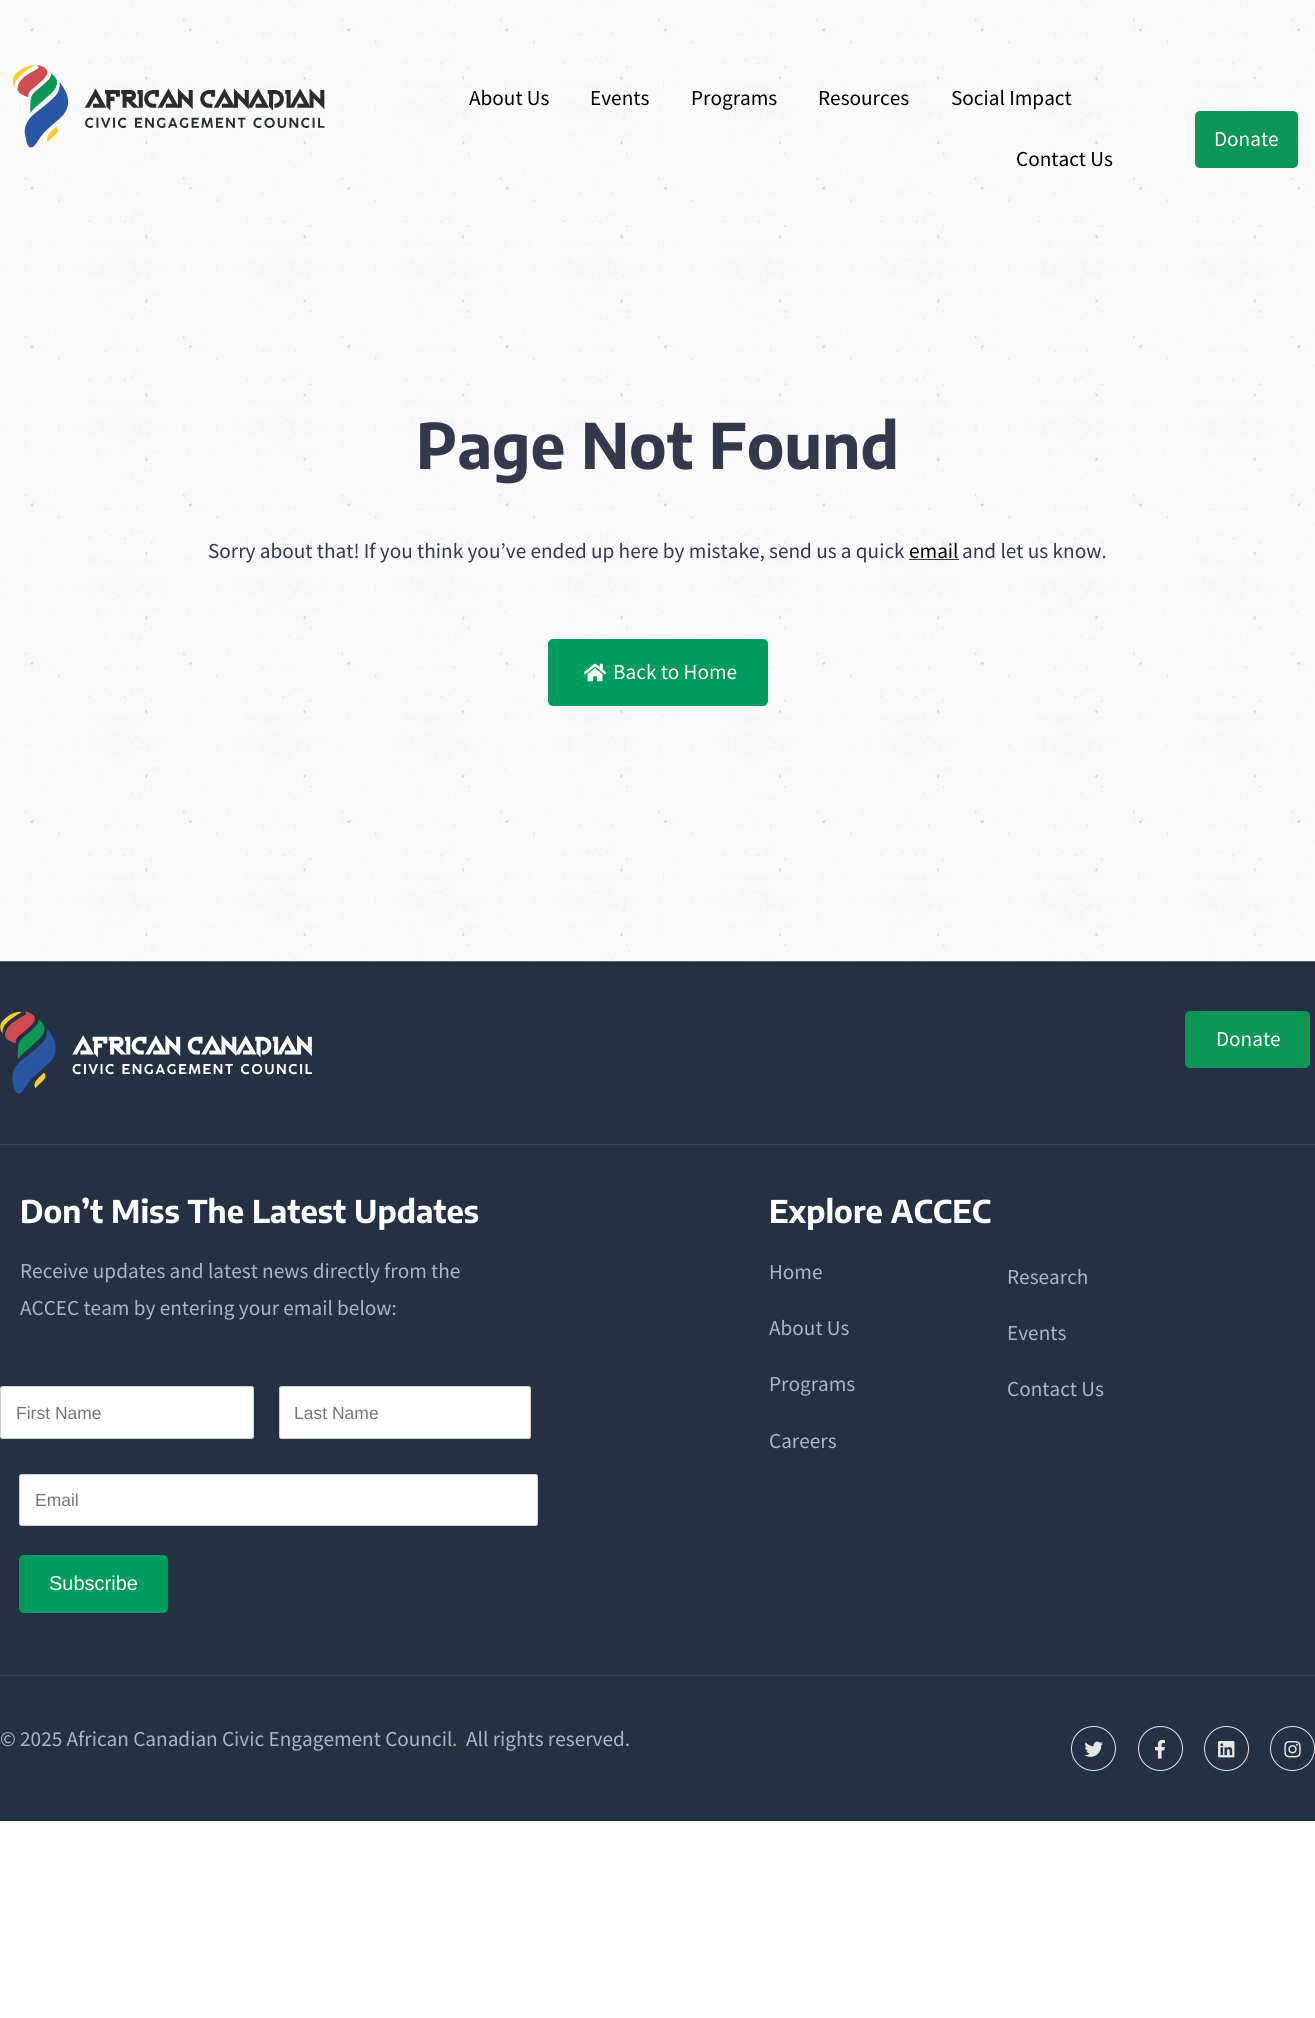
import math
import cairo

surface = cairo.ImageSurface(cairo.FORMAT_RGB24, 1315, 2018)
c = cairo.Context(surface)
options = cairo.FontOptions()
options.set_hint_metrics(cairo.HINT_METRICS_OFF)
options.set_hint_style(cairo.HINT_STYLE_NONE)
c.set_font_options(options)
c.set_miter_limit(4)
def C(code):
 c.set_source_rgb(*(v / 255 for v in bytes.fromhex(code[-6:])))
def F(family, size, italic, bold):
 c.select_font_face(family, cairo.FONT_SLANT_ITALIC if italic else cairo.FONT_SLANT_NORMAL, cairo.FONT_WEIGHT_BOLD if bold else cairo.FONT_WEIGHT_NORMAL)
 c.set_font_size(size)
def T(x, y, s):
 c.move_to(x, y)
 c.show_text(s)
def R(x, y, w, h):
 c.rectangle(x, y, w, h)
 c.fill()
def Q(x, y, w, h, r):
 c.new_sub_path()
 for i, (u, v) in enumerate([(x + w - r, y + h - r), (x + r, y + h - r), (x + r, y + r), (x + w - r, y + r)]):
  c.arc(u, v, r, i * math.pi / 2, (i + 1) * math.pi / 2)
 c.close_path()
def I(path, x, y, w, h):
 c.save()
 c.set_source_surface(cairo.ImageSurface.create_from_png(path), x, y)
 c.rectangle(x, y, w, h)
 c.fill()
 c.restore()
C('ffffff')
c.paint()
C('243043')
R(0,961,1315,183)
I('2.png',0,0,1315,962)
I('1.png',13,65,312,83)
F('Source Sans Pro',21.25,0,0)
C('000000')
T(469,105,'About Us')
T(590,105,'Events')
T(691,105,'Programs')
T(818,105,'Resources')
T(951,105,'Social Impact')
T(1016,166,'Contact Us')
C('0c9754')
Q(1195,111,103,57,5)
c.fill()
C('ffffff')
T(1214,146,'Donate')
F('Encode Sans Condensed',62.5,0,1)
C('34384c')
T(416,469,'Page Not Found')
F('Source Sans Pro',21.25,0,0)
T(208,558,'Sorry about that! If you think you’ve ended up here by mistake, send us a quick')
C('000000')
T(909,558,'email')
C('34384c')
R(909,559,50,1)
T(962,558,'and let us know.')
C('009b5e')
Q(548,639,220,67,5)
c.fill()
I('3.png',583,663,24,19)
C('ffffff')
T(613,679,'Back to Home')
I('4.png',0,1011,313,83)
C('0c9754')
Q(1185,1011,125,57,5)
c.fill()
C('ffffff')
T(1216,1046,'Donate')
C('243043')
R(0,1145,1315,530)
C('3a4556')
R(0,1144,1315,1)
F('Encode Sans Condensed',31.25,0,1)
C('ffffff')
T(20,1223,'Don’t Miss The Latest Updates')
F('Source Sans Pro',21.25,0,0)
C('aab6c9')
T(20,1278,'Receive updates and latest news directly from the')
T(20,1315,'ACCEC team by entering your email below:')
C('ffffff')
Q(.5,1386.5,253,52,2)
c.fill_preserve()
C('cfcfcf')
c.set_line_width(1)
c.stroke()
F('Liberation Sans',17.5,0,0)
C('757575')
T(16,1419,'First Name')
C('ffffff')
Q(279.5,1386.5,251,52,2)
c.fill_preserve()
C('cfcfcf')
c.stroke()
C('757575')
T(294,1419,'Last Name')
C('ffffff')
Q(19.5,1474.5,518,51,2)
c.fill_preserve()
C('cfcfcf')
c.stroke()
C('757575')
T(35,1506,'Email')
C('009b5e')
Q(19,1555,149,58,5)
c.fill()
F('Liberation Sans',20,0,0)
C('ffffff')
T(49,1590,'Subscribe')
F('Encode Sans Condensed',31.25,0,1)
T(769,1223,'Explore ACCEC')
F('Source Sans Pro',21.25,0,0)
C('aab6c9')
T(769,1279,'Home')
T(769,1335,'About Us')
T(769,1391,'Programs')
T(769,1448,'Careers')
T(1007,1284,'Research')
T(1007,1340,'Events')
T(1007,1396,'Contact Us')
C('243043')
R(0,1676,1315,145)
C('3a4556')
R(0,1675,1315,1)
C('aab6c9')
T(0,1746,'© 2025 African Canadian Civic Engagement Council')
C('8cc640')
T(452,1746,'.')
C('aab6c9')
T(466,1746,'All rights reserved.')
c.new_path()
c.arc(1093.5,1748.5,22,0,2 * math.pi)
C('e6e6e6')
c.stroke()
I('5.png',1084,1741,19,16)
c.arc(1160.5,1748.5,22,0,2 * math.pi)
c.stroke()
I('6.png',1155,1739,10,20)
c.arc(1226.5,1748.5,22,0,2 * math.pi)
c.stroke()
I('7.png',1218,1741,17,17)
c.arc(1292.5,1748.5,22,0,2 * math.pi)
c.stroke()
I('8.png',1284,1741,17,17)
surface.write_to_png('o.png')
